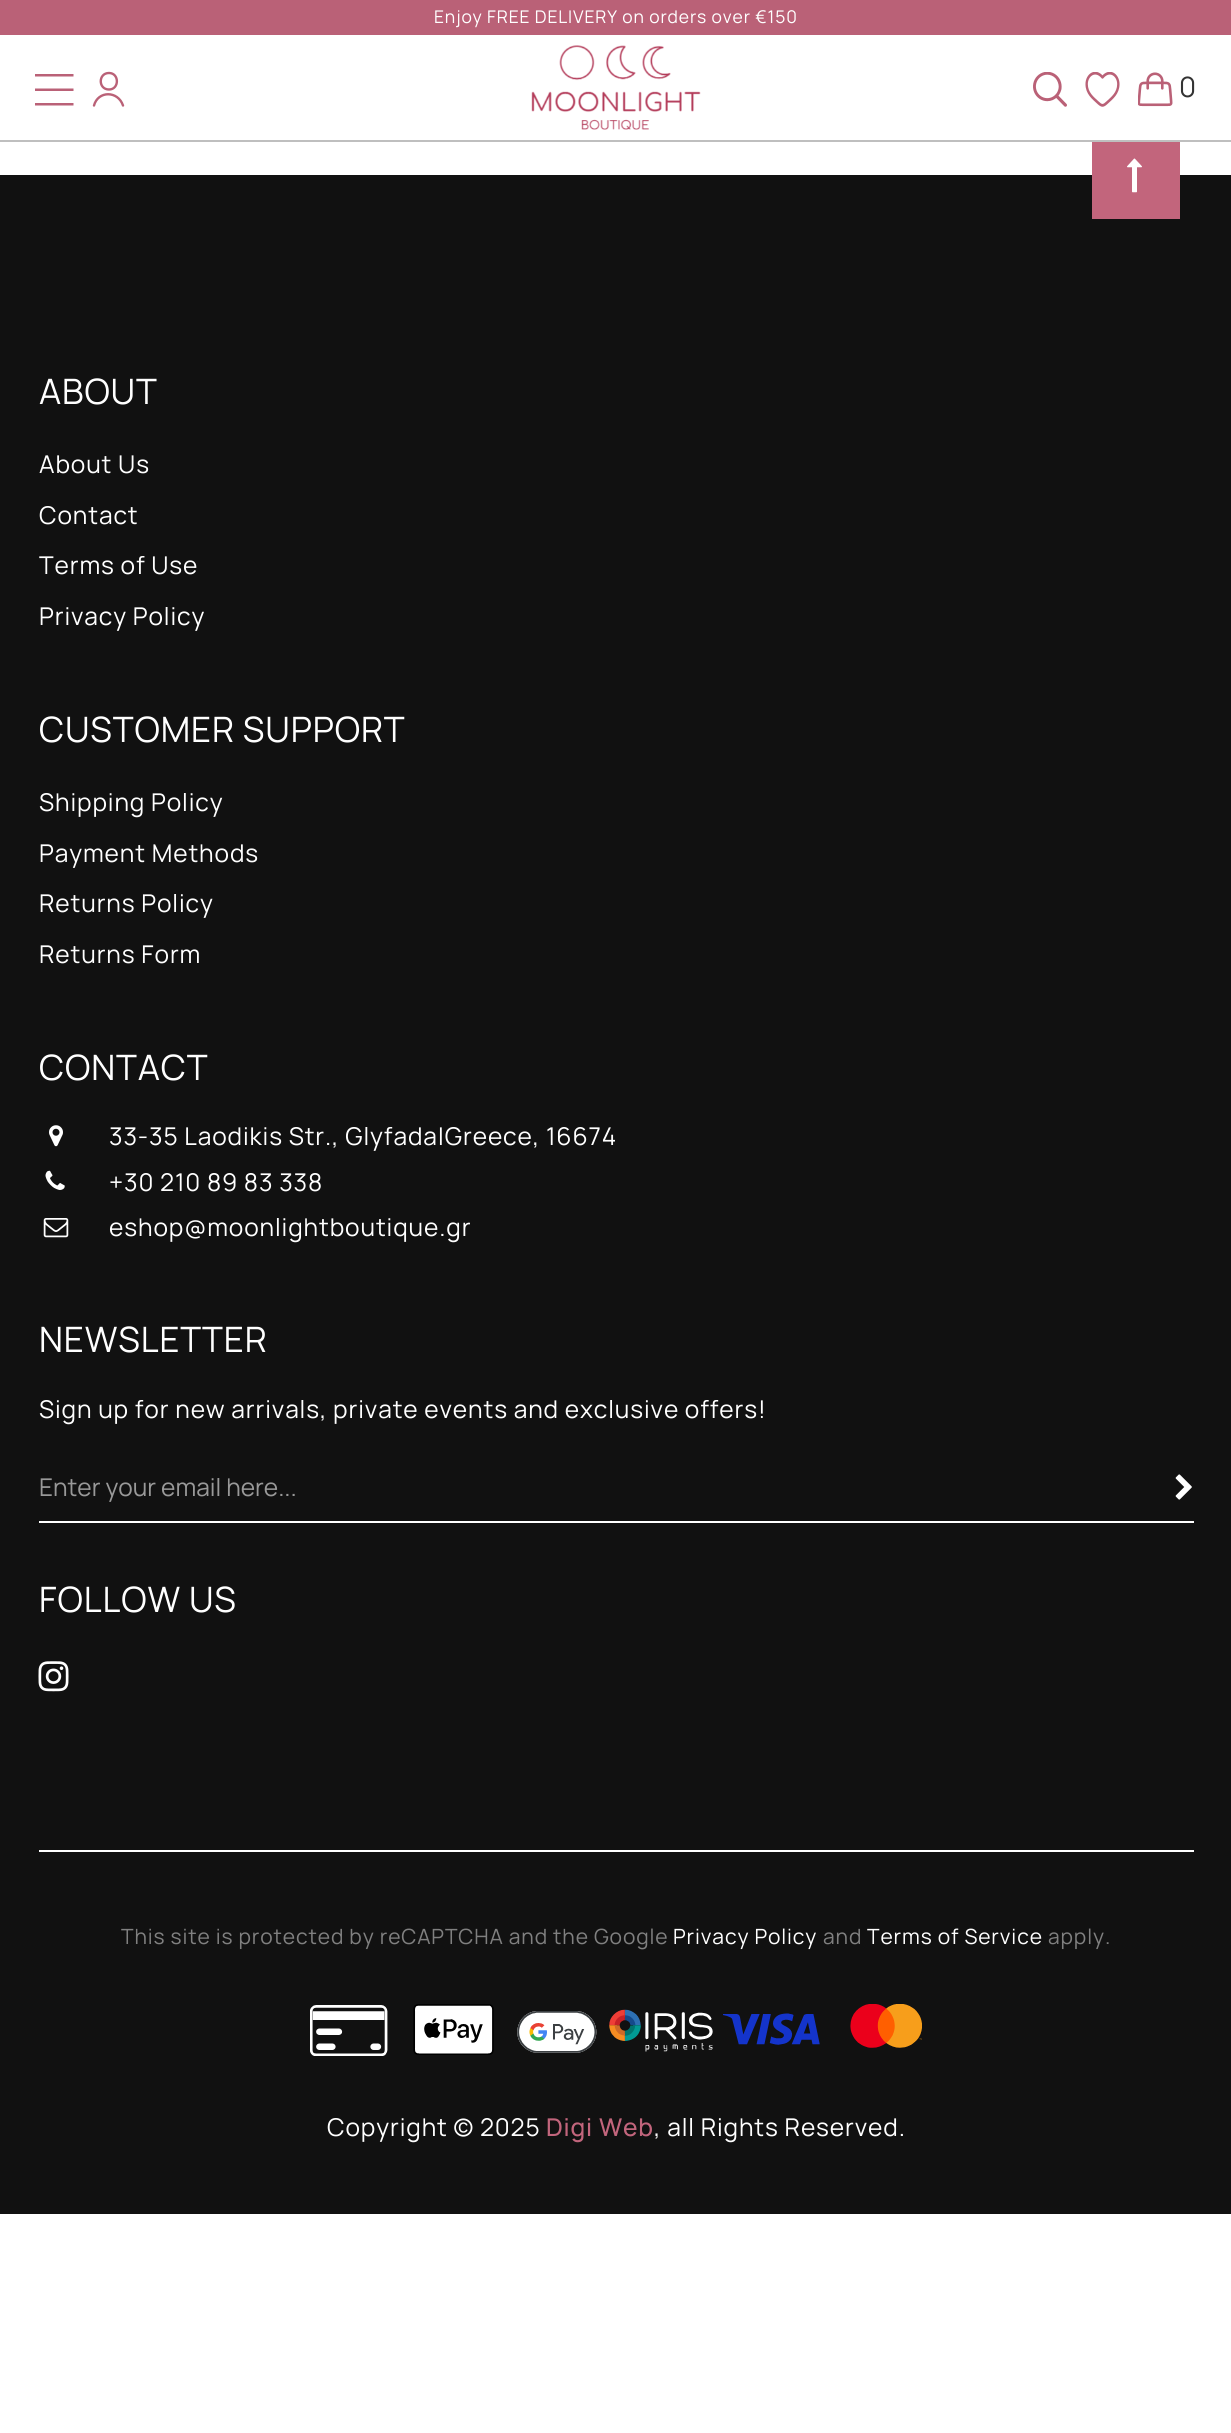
import math
import cairo

surface = cairo.ImageSurface(cairo.FORMAT_RGB24, 1231, 2433)
c = cairo.Context(surface)
options = cairo.FontOptions()
options.set_hint_metrics(cairo.HINT_METRICS_OFF)
options.set_hint_style(cairo.HINT_STYLE_NONE)
c.set_font_options(options)
c.set_miter_limit(4)
def C(code):
 c.set_source_rgb(*(v / 255 for v in bytes.fromhex(code[-6:])))
def F(family, size, italic, bold):
 c.select_font_face(family, cairo.FONT_SLANT_ITALIC if italic else cairo.FONT_SLANT_NORMAL, cairo.FONT_WEIGHT_BOLD if bold else cairo.FONT_WEIGHT_NORMAL)
 c.set_font_size(size)
def T(x, y, s):
 c.move_to(x, y)
 c.show_text(s)
def L(x, y, s, letter, word):
 c.move_to(x, y)
 for ch in s:
  c.show_text(ch)
  c.rel_move_to(letter + word * (ch == ' '), 0)
def R(x, y, w, h):
 c.rectangle(x, y, w, h)
 c.fill()
def I(path, x, y, w, h):
 c.save()
 c.set_source_surface(cairo.ImageSurface.create_from_png(path), x, y)
 c.rectangle(x, y, w, h)
 c.fill()
 c.restore()
C('ffffff')
c.paint()
C('ba6177')
R(0,0,1231,35)
F('Manrope',17.5,0,0)
C('ffffff')
L(434,23,'Enjoy FREE DELIVERY on orders over €150',.88,0)
C('bfbfbf')
R(0,140,1231,2)
C('ba6177')
c.new_path()
c.move_to(35,105.5)
c.line_to(35,103)
c.line_to(73.5,103)
c.line_to(73.5,105.5)
c.close_path()
c.move_to(35,91)
c.line_to(35,88.5)
c.line_to(73.5,88.5)
c.line_to(73.5,91)
c.close_path()
c.move_to(35,74)
c.line_to(35,76.5)
c.line_to(73.5,76.5)
c.line_to(73.5,74)
c.close_path()
c.fill()
c.new_path()
c.move_to(109,89.5)
c.curve_to(119.5,89.5,119.5,73,109,73)
c.curve_to(98,73,98,89.5,109,89.5)
c.close_path()
c.move_to(94,105.5)
c.curve_to(98,90.5,118,90.5,123,105.5)
c.set_line_width(2.4)
c.set_line_cap(cairo.LINE_CAP_ROUND)
c.set_line_join(cairo.LINE_JOIN_ROUND)
c.stroke()
I('1.png',531,45,170,85)
I('2.png',1033,72,34,35)
I('3.png',1085,72,35,35)
I('4.png',1138,72,35,35)
F('Manrope',28,0,0)
C('333333')
L(1179,97,'0',.88,0)
C('111111')
R(0,175,1231,2039)
C('c2657c')
R(1092,142,88,77)
I('5.png',1127,158,15,35)
F('Manrope',35,0,0)
C('ffffff')
L(39,404,'ABOUT',.88,0)
F('Manrope',24.5,0,0)
L(39,473,'About Us',.88,0)
L(39,524,'Contact',.88,0)
L(39,574,'Terms of Use',.88,0)
L(39,625,'Privacy Policy',.88,0)
F('Manrope',35,0,0)
L(39,742,'CUSTOMER SUPPORT',.88,0)
F('Manrope',24.5,0,0)
L(39,811,'Shipping Policy',.88,0)
L(39,862,'Payment Methods',.88,0)
L(39,912,'Returns Policy',.88,0)
L(39,963,'Returns Form',.88,0)
F('Manrope',35,0,0)
L(39,1080,'CONTACT',.88,0)
I('6.png',49,1125,14,22)
F('Manrope',24.5,0,0)
L(109,1145,'33-35 Laodikis Str., Glyfada|Greece, 16674',.88,0)
I('7.png',45,1170,20,20)
L(109,1191,'+30 210 89 83 338',.88,0)
I('8.png',43,1218,26,20)
L(109,1236,'eshop@moonlightboutique.gr',.88,0)
F('Manrope',35,0,0)
L(39,1352,'NEWSLETTER',.88,0)
F('Manrope',24.5,0,0)
L(39,1418,'Sign up for new arrivals, private events and exclusive offers!',.88,0)
R(39,1521,1155,2)
C('999999')
T(39,1496,'Enter your email here...')
I('9.png',1175,1474,17,26)
F('Manrope',35,0,0)
C('ffffff')
L(39,1612,'FOLLOW US',.88,0)
I('10.png',38,1661,31,31)
R(39,1850,1155,2)
F('Manrope',21,0,0)
C('808080')
L(121,1944,'This site is protected by reCAPTCHA and the Google',.88,0)
C('ffffff')
L(673,1944,'Privacy Policy',.88,0)
C('808080')
L(823,1944,'and',.88,0)
C('ffffff')
L(867,1944,'Terms of Service',.88,0)
C('808080')
L(1048,1944,'apply.',.88,0)
I('11.png',310,2004,612,52)
F('Manrope',24.5,0,0)
C('ffffff')
L(327,2136,'Copyright © 2025',.88,0)
F('Manrope Medium',24.5,0,0)
C('c2657c')
L(546,2136,'Digi Web',.88,0)
F('Manrope',24.5,0,0)
C('ffffff')
L(654,2136,', all Rights Reserved.',.88,0)
surface.write_to_png('o.png')
